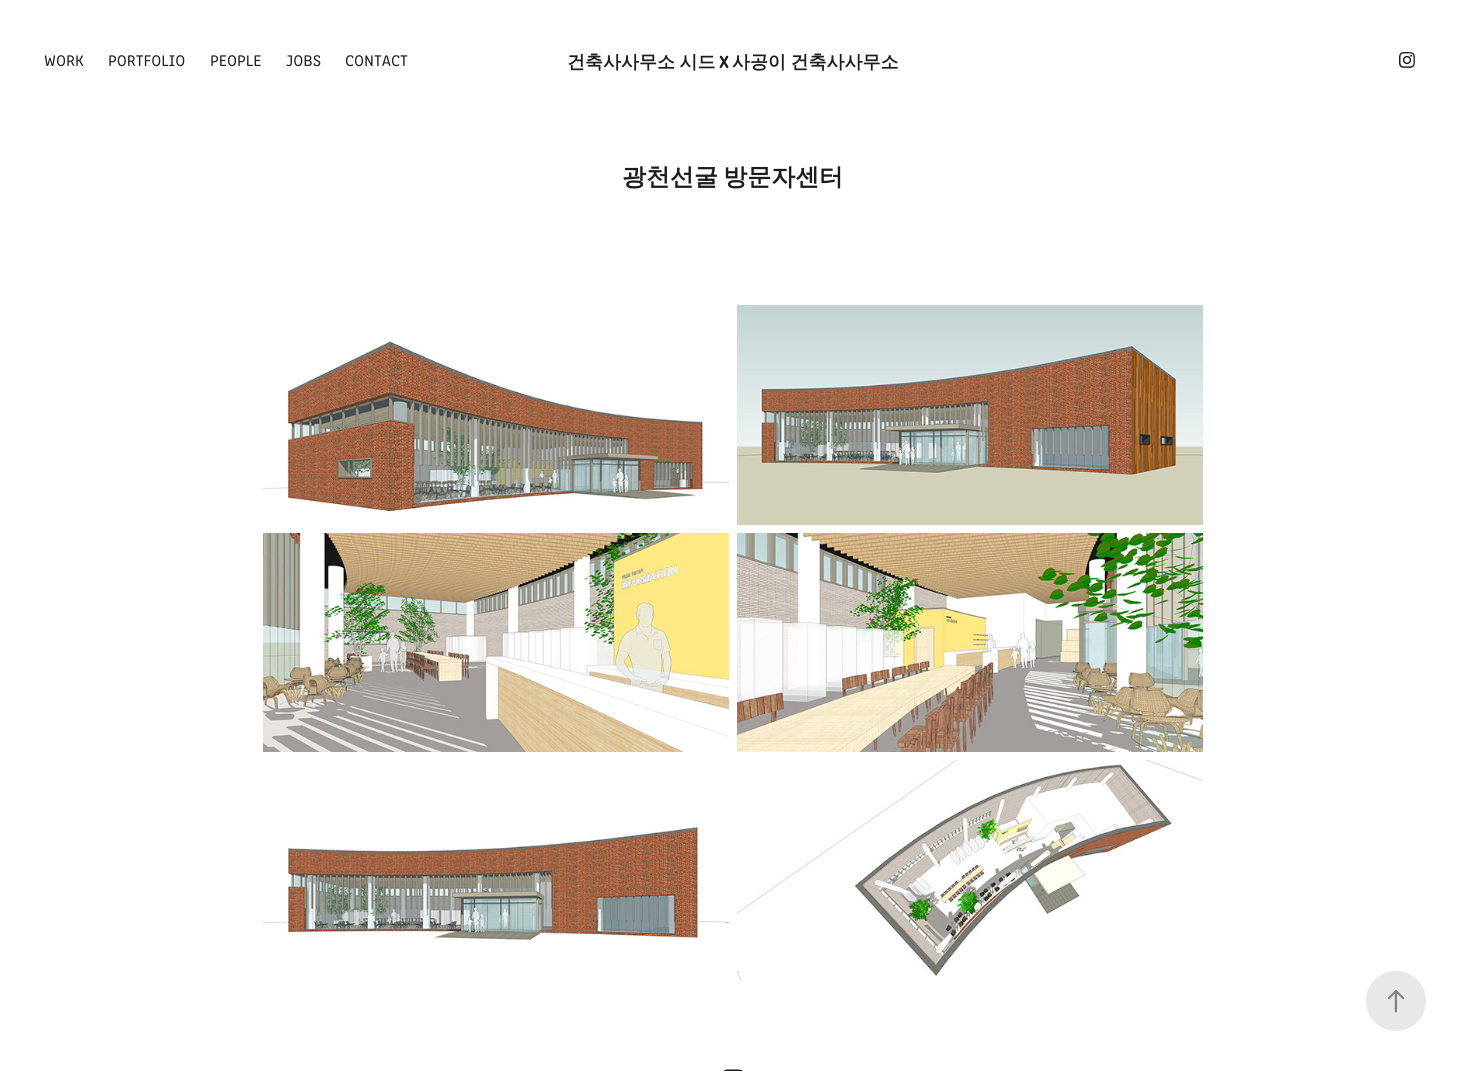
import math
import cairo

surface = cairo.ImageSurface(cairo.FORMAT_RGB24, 1466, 1071)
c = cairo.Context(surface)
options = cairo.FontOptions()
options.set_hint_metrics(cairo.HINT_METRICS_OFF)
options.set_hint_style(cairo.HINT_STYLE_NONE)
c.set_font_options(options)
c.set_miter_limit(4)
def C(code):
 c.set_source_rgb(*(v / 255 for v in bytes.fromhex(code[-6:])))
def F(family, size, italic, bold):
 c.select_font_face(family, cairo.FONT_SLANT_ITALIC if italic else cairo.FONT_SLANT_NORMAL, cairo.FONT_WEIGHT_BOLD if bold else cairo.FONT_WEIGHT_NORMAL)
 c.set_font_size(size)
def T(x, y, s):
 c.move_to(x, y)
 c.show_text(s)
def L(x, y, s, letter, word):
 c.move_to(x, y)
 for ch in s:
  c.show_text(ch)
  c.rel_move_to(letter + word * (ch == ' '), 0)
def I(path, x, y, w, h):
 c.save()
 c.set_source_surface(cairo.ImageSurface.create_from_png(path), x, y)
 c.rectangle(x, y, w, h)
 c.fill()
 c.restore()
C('ffffff')
c.paint()
F('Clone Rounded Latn',16,0,0)
C('1c1c1c')
T(44,66,'WORK')
T(108,66,'PORTFOLIO')
T(210,66,'PEOPLE')
T(286,66,'JOBS')
T(345,66,'CONTACT')
F('WenQuanYi Zen Hei',18,0,1)
L(567,68,'건축사사무소 시드',0,-1)
F('Clone Rounded Latn',18,0,1)
T(719,68,'X')
F('WenQuanYi Zen Hei',18,0,1)
L(732,68,'사공이 건축사사무소',0,-1)
I('1.png',1399,52,16,16)
F('WenQuanYi Zen Hei',24,0,1)
L(622,185,'광천선굴 방문자센터',0,-2)
I('2.png',263,341,466,175)
I('3.png',737,305,466,220)
I('4.png',263,533,466,219)
I('5.png',737,533,466,219)
I('6.png',263,827,466,113)
I('7.png',737,760,466,220)
C('e8e8e8')
c.arc(1396,1001,30,0,2 * math.pi)
c.fill()
I('8.png',1387,990,18,23)
I('9.png',723,1069,20,2)
surface.write_to_png('o.png')
